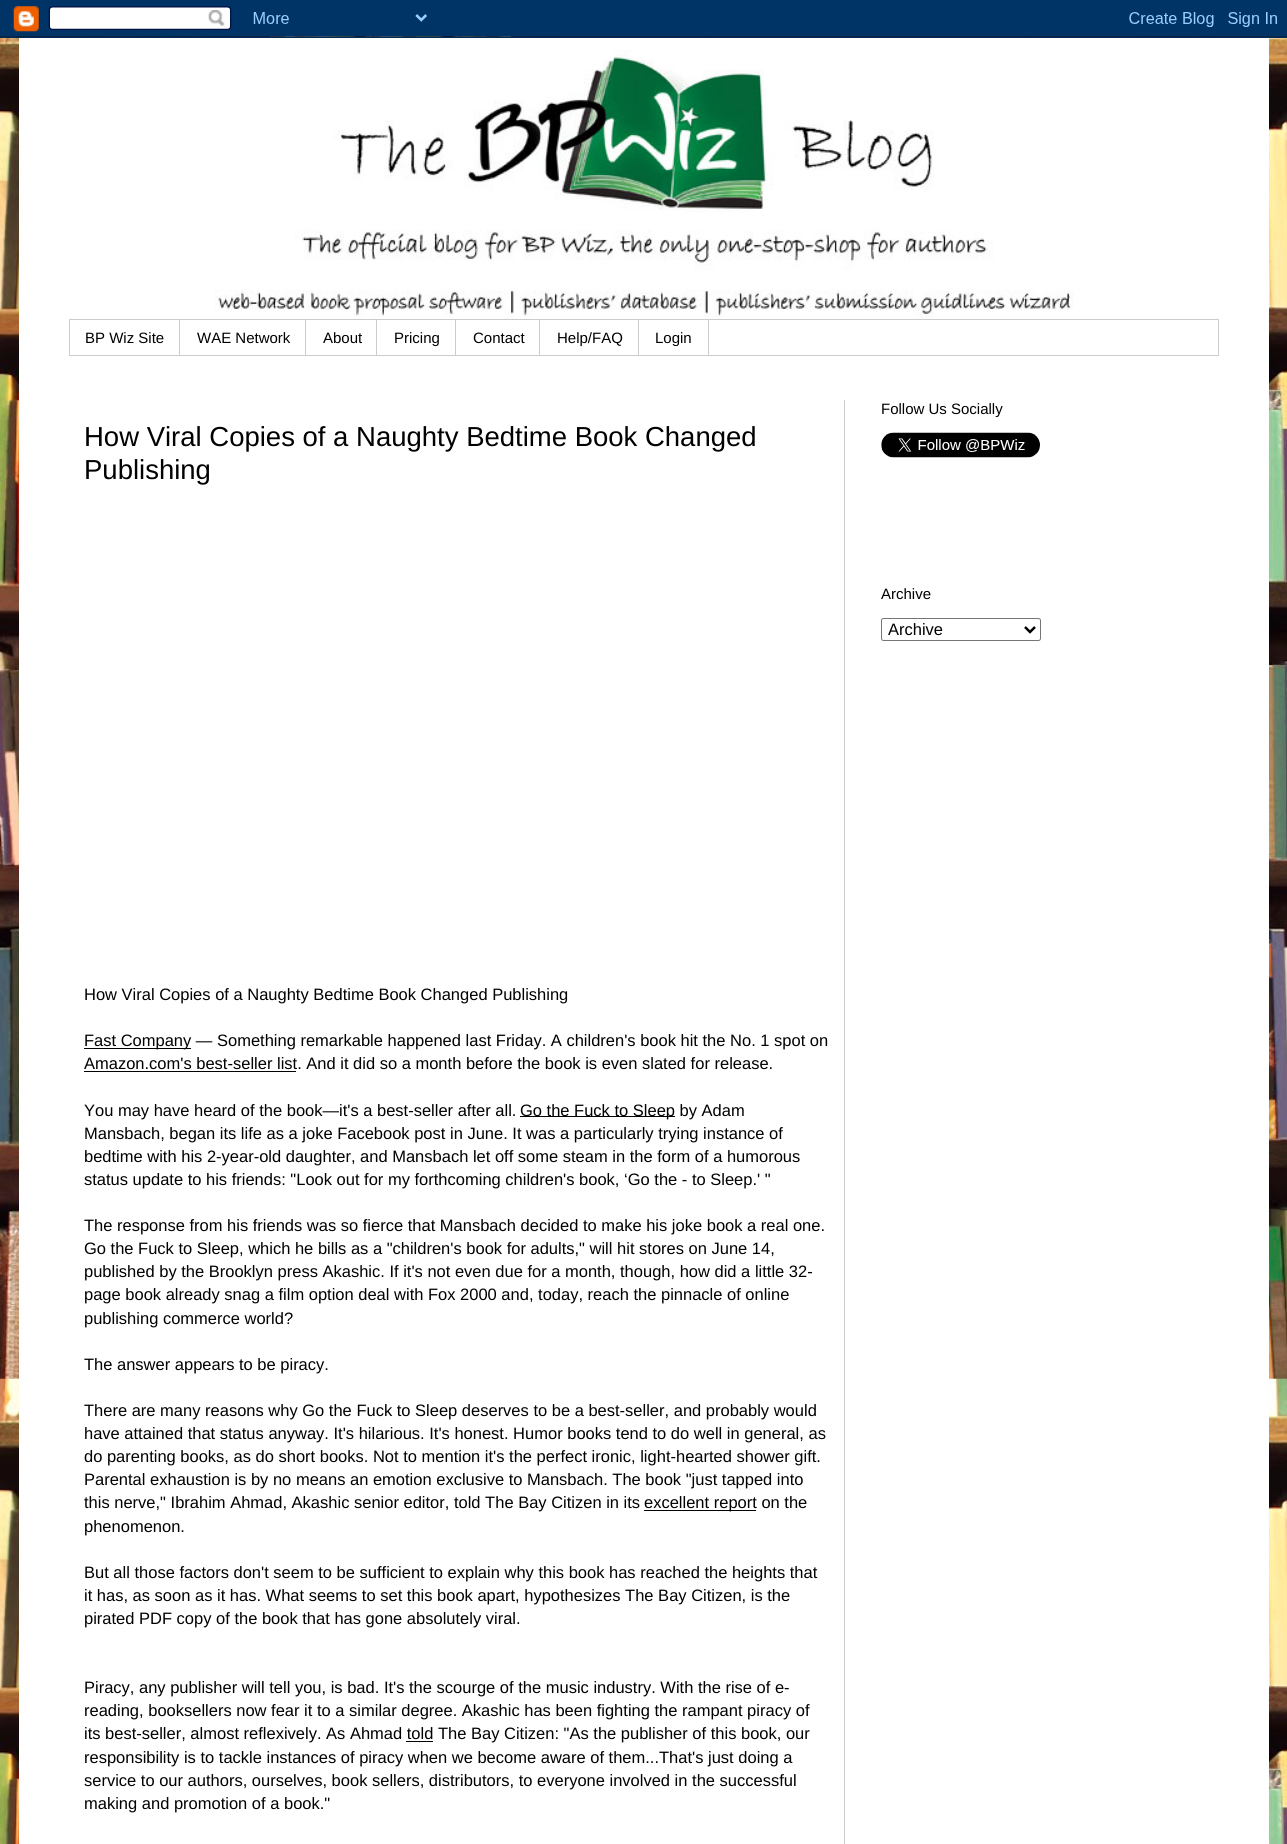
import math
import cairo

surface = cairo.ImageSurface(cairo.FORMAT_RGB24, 1287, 1844)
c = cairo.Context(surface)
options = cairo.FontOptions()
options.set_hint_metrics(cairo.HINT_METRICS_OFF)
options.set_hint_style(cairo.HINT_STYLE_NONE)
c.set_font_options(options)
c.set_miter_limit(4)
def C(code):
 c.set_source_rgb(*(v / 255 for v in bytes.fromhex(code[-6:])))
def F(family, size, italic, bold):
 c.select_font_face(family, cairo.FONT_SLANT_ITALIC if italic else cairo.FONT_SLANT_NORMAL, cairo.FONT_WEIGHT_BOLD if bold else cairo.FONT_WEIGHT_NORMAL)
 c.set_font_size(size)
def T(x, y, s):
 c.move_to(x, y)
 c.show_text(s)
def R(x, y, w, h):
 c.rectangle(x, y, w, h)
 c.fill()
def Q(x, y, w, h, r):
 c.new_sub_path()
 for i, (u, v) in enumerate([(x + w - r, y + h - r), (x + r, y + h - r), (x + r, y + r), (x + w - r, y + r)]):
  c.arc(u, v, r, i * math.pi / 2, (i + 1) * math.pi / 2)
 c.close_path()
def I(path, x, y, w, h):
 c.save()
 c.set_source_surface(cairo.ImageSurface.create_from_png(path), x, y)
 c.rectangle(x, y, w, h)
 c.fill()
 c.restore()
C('ffffff')
c.paint()
I('1.png',0,36,1287,1808)
I('2.png',0,0,1287,38)
C('ffffff')
R(19,38,1250,1806)
I('3.png',214,50,860,269)
c.rectangle(69.5,319.5,1149,36)
C('cccccc')
c.set_line_width(1)
c.stroke()
R(179,320,1,35)
F('Liberation Sans',15,0,0)
C('000000')
T(85,343,'BP Wiz Site')
C('cccccc')
R(305,320,1,35)
C('000000')
T(197,343,'WAE Network')
C('cccccc')
R(376,320,1,35)
C('000000')
T(323,343,'About')
C('cccccc')
R(455,320,1,35)
C('000000')
T(394,343,'Pricing')
C('cccccc')
R(539,320,1,35)
C('000000')
T(473,343,'Contact')
C('cccccc')
R(638,320,1,35)
C('000000')
T(557,343,'Help/FAQ')
C('cccccc')
R(708,320,1,35)
C('000000')
T(655,343,'Login')
C('cccccc')
R(844,400,1,1444)
F('Liberation Sans',27.5,0,0)
C('000000')
T(84,446,'How Viral Copies of a Naughty Bedtime Book Changed')
T(84,479,'Publishing')
F('Liberation Sans',16.5,0,0)
T(84,1000,'How Viral Copies of a Naughty Bedtime Book Changed Publishing')
R(84,1048,107,1)
T(84,1046,'Fast Company — Something remarkable happened last Friday. A children\'s book hit the No. 1 spot on')
T(84,1069,'Amazon.com\'s best-seller list. And it did so a month before the book is even slated for release.')
R(84,1071,212,1)
T(84,1116,'You may have heard of the book—it\'s a best-seller after all.')
R(520,1116,155,1)
T(520,1116,'Go the Fuck to Sleep by Adam')
T(84,1139,'Mansbach, began its life as a joke Facebook post in June. It was a particularly trying instance of')
T(84,1162,'bedtime with his 2-year-old daughter, and Mansbach let off some steam in the form of a humorous')
T(84,1185,'status update to his friends: "Look out for my forthcoming children\'s book, ‘Go the - to Sleep.\' "')
T(84,1231,'The response from his friends was so fierce that Mansbach decided to make his joke book a real one.')
T(84,1254,'Go the Fuck to Sleep, which he bills as a "children\'s book for adults," will hit stores on June 14,')
T(84,1277,'published by the Brooklyn press Akashic. If it\'s not even due for a month, though, how did a little 32-')
T(84,1300,'page book already snag a film option deal with Fox 2000 and, today, reach the pinnacle of online')
T(84,1324,'publishing commerce world?')
T(84,1370,'The answer appears to be piracy.')
T(84,1416,'There are many reasons why Go the Fuck to Sleep deserves to be a best-seller, and probably would')
T(84,1439,'have attained that status anyway. It\'s hilarious. It\'s honest. Humor books tend to do well in general, as')
T(84,1462,'do parenting books, as do short books. Not to mention it\'s the perfect ironic, light-hearted shower gift.')
T(84,1485,'Parental exhaustion is by no means an emotion exclusive to Mansbach. The book "just tapped into')
T(84,1508,'this nerve," Ibrahim Ahmad, Akashic senior editor, told The Bay Citizen in its')
R(644,1510,112,1)
T(644,1508,'excellent report on the')
T(84,1532,'phenomenon.')
T(84,1578,'But all those factors don\'t seem to be sufficient to explain why this book has reached the heights that')
T(84,1601,'it has, as soon as it has. What seems to set this book apart, hypothesizes The Bay Citizen, is the')
T(84,1624,'pirated PDF copy of the book that has gone absolutely viral.')
T(84,1693,'Piracy, any publisher will tell you, is bad. It\'s the scourge of the music industry. With the rise of e-')
T(84,1716,'reading, booksellers now fear it to a similar degree. Akashic has been fighting the rampant piracy of')
T(84,1739,'its best-seller, almost reflexively. As Ahmad told The Bay Citizen: "As the publisher of this book, our')
R(406,1741,27,1)
T(84,1763,'responsibility is to tackle instances of piracy when we become aware of them...That\'s just doing a')
T(84,1786,'service to our authors, ourselves, book sellers, distributors, to everyone involved in the successful')
T(84,1809,'making and promotion of a book."')
F('Liberation Sans',15,0,0)
T(881,414,'Follow Us Socially')
I('4.png',881,432,159,26)
T(881,599,'Archive')
Q(881.5,618.5,159,22,2)
C('767676')
c.stroke()
c.new_path()
c.move_to(1025,627)
c.line_to(1030,632)
c.line_to(1035,627)
C('000000')
c.set_line_width(2.5)
c.stroke()
F('Liberation Sans',16.5,0,0)
T(888,635,'Archive')
surface.write_to_png('o.png')
